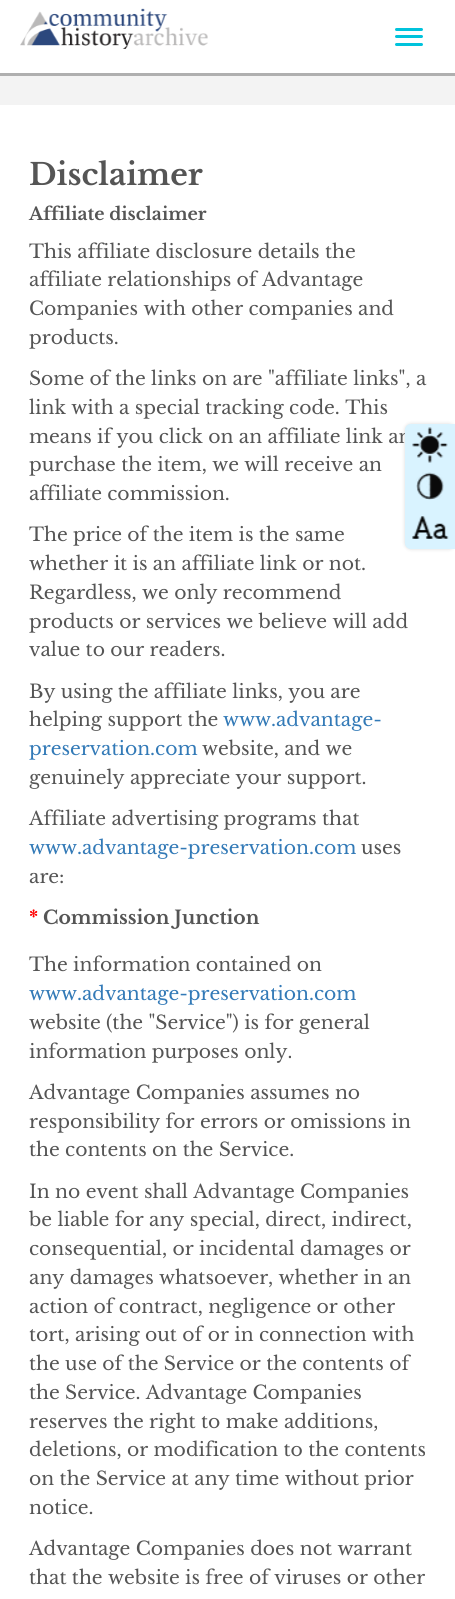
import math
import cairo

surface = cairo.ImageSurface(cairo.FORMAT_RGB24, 455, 1599)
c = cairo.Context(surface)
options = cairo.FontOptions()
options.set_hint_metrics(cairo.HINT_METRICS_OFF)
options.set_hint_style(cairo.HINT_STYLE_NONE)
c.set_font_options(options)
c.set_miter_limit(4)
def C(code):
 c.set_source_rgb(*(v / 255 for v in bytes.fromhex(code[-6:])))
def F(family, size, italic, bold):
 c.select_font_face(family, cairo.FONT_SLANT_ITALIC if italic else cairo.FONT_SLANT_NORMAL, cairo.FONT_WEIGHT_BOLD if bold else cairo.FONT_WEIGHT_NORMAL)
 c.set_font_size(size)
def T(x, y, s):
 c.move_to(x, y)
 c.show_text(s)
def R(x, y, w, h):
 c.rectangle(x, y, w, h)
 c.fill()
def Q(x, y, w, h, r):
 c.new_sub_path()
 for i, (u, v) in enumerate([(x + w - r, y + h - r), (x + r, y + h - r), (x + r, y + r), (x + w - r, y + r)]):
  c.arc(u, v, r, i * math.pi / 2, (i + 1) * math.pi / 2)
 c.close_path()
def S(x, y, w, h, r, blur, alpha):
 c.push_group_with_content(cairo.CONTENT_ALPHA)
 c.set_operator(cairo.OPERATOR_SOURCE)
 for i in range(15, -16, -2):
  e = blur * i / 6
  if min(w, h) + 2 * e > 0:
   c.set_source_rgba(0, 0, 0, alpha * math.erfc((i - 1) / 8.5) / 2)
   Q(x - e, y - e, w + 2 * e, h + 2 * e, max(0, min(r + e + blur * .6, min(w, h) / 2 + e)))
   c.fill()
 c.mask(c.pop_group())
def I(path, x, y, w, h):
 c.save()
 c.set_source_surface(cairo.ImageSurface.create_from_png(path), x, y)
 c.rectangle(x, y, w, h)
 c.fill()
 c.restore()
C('f3f3f3')
c.paint()
C('ffffff')
R(0,0,455,73)
C('afafaf')
R(0,73,455,3)
I('1.png',20,8,188,41)
C('00c3dc')
Q(395,28,28,3,1.5)
c.fill()
Q(395,35,28,3,1.5)
c.fill()
Q(395,43,28,3,1.5)
c.fill()
C('ffffff')
R(0,105,455,1494)
F('Libre Baskerville',30,0,1)
C('555555')
T(29,185,'Disclaimer')
F('Libre Baskerville',17.5,0,1)
T(29,220,'Affiliate disclaimer')
F('Libre Baskerville',18.75,0,0)
T(29,258,'This affiliate disclosure details the')
T(29,286,'affiliate relationships of Advantage')
T(29,315,'Companies with other companies and')
T(29,344,'products.')
T(29,385,'Some of the links on are "affiliate links", a')
T(29,414,'link with a special tracking code. This')
T(29,443,'means if you click on an affiliate link an')
T(29,471,'purchase the item, we will receive an')
T(29,500,'affiliate commission.')
T(29,541,'The price of the item is the same')
T(29,570,'whether it is an affiliate link or not.')
T(29,599,'Regardless, we only recommend')
T(29,628,'products or services we believe will add')
T(29,656,'value to our readers.')
T(29,698,'By using the affiliate links, you are')
T(29,726,'helping support the')
C('337ab7')
T(223,726,'www.advantage-')
T(29,755,'preservation.com')
C('555555')
T(202,755,'website, and we')
T(29,784,'genuinely appreciate your support.')
T(29,825,'Affiliate advertising programs that')
C('337ab7')
T(29,854,'www.advantage-preservation.com')
C('555555')
T(361,854,'uses')
T(29,883,'are:')
F('Libre Baskerville',18.75,0,1)
C('ff0000')
T(29,924,'*')
C('555555')
T(43,924,'Commission Junction')
F('Libre Baskerville',18.75,0,0)
T(29,971,'The information contained on')
C('337ab7')
T(29,1000,'www.advantage-preservation.com')
C('555555')
T(29,1029,'website (the "Service") is for general')
T(29,1058,'information purposes only.')
T(29,1099,'Advantage Companies assumes no')
T(29,1128,'responsibility for errors or omissions in')
T(29,1156,'the contents on the Service.')
T(29,1198,'In no event shall Advantage Companies')
T(29,1226,'be liable for any special, direct, indirect,')
T(29,1255,'consequential, or incidental damages or')
T(29,1284,'any damages whatsoever, whether in an')
T(29,1313,'action of contract, negligence or other')
T(29,1341,'tort, arising out of or in connection with')
T(29,1370,'the use of the Service or the contents of')
T(29,1399,'the Service. Advantage Companies')
T(29,1428,'reserves the right to make additions,')
T(29,1456,'deletions, or modification to the contents')
T(29,1485,'on the Service at any time without prior')
T(29,1514,'notice.')
T(29,1555,'Advantage Companies does not warrant')
T(29,1584,'that the website is free of viruses or other')
C('000000')
S(405,424,50,125,6,2,.15)
C('d9f3ff')
c.new_path()
c.move_to(411,424)
c.line_to(455,424)
c.line_to(455,549)
c.line_to(411,549)
c.curve_to(407.5,549,405,546.5,405,543)
c.line_to(405,430)
c.curve_to(405,426.5,407.5,424,411,424)
c.close_path()
c.fill()
I('2.png',412,427,36,36)
I('3.png',416,472,28,28)
I('4.png',412,516,37,23)
surface.write_to_png('o.png')
